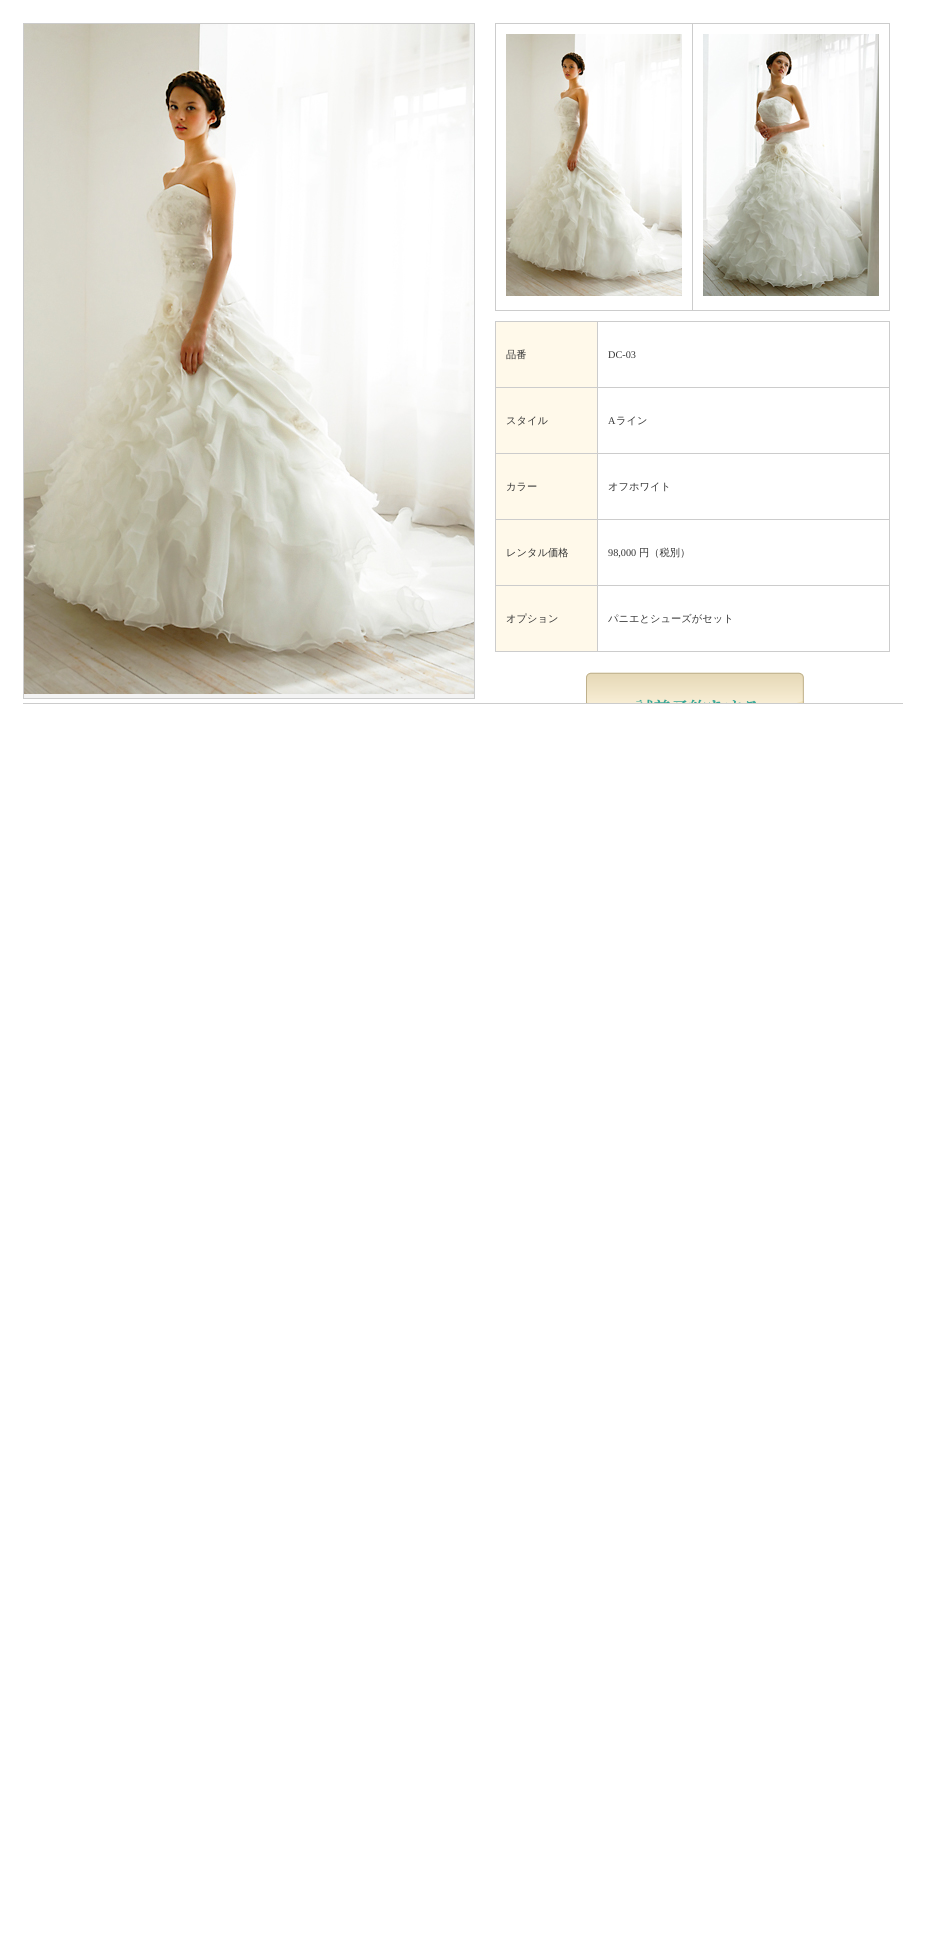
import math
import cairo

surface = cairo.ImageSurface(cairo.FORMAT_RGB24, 951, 1946)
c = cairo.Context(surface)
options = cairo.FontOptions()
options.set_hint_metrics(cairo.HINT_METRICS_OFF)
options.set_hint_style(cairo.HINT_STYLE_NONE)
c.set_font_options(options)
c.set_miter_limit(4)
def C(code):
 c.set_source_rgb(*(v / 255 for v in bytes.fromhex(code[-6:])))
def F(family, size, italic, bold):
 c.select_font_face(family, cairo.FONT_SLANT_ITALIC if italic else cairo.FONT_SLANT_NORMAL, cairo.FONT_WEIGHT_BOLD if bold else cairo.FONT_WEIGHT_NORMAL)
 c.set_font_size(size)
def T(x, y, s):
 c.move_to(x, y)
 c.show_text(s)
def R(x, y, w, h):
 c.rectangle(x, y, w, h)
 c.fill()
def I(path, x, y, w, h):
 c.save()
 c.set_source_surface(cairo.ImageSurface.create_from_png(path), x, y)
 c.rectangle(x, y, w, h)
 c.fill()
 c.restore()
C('ffffff')
c.paint()
C('f3f3f3')
R(24,694,450,4)
c.rectangle(23.5,23.5,451,675)
C('cccccc')
c.set_line_width(1)
c.stroke()
I('1.png',24,24,450,670)
c.rectangle(495.5,23.5,197,287)
c.stroke()
I('2.png',506,34,176,262)
R(693,23,197,1)
R(889,23,1,288)
R(693,310,197,1)
I('3.png',703,34,176,262)
R(495,321,395,1)
R(495,321,1,331)
C('fff9ea')
R(496,322,101,65)
C('cccccc')
R(597,322,1,330)
R(496,387,102,1)
F('WenQuanYi Zen Hei Medium',10.25,0,0)
C('333333')
T(506,358,'品番')
C('cccccc')
R(889,322,1,330)
R(598,387,292,1)
F('Liberation Serif',10.25,0,0)
C('333333')
T(608,358,'DC-03')
C('fff9ea')
R(496,388,101,65)
C('cccccc')
R(496,453,394,1)
F('WenQuanYi Zen Hei Medium',10.25,0,0)
C('333333')
T(506,424,'スタイル')
F('Liberation Serif',10.25,0,0)
T(608,424,'A')
F('WenQuanYi Zen Hei Medium',10.25,0,0)
T(616,424,'ライン')
C('fff9ea')
R(496,454,101,65)
C('cccccc')
R(496,519,394,1)
C('333333')
T(506,490,'カラー')
T(608,490,'オフホワイト')
C('fff9ea')
R(496,520,101,65)
C('cccccc')
R(496,585,394,1)
C('333333')
T(506,556,'レンタル価格')
F('Liberation Serif',10.25,0,0)
T(608,556,'98,000')
F('WenQuanYi Zen Hei Medium',10.25,0,0)
T(639,556,'円（税別）')
C('fff9ea')
R(496,586,101,65)
C('cccccc')
R(496,651,394,1)
C('333333')
T(506,622,'オプション')
T(608,622,'パニエとシューズがセット')
I('4.png',586,672,218,31)
C('cccccc')
R(23,703,880,1)
surface.write_to_png('o.png')
